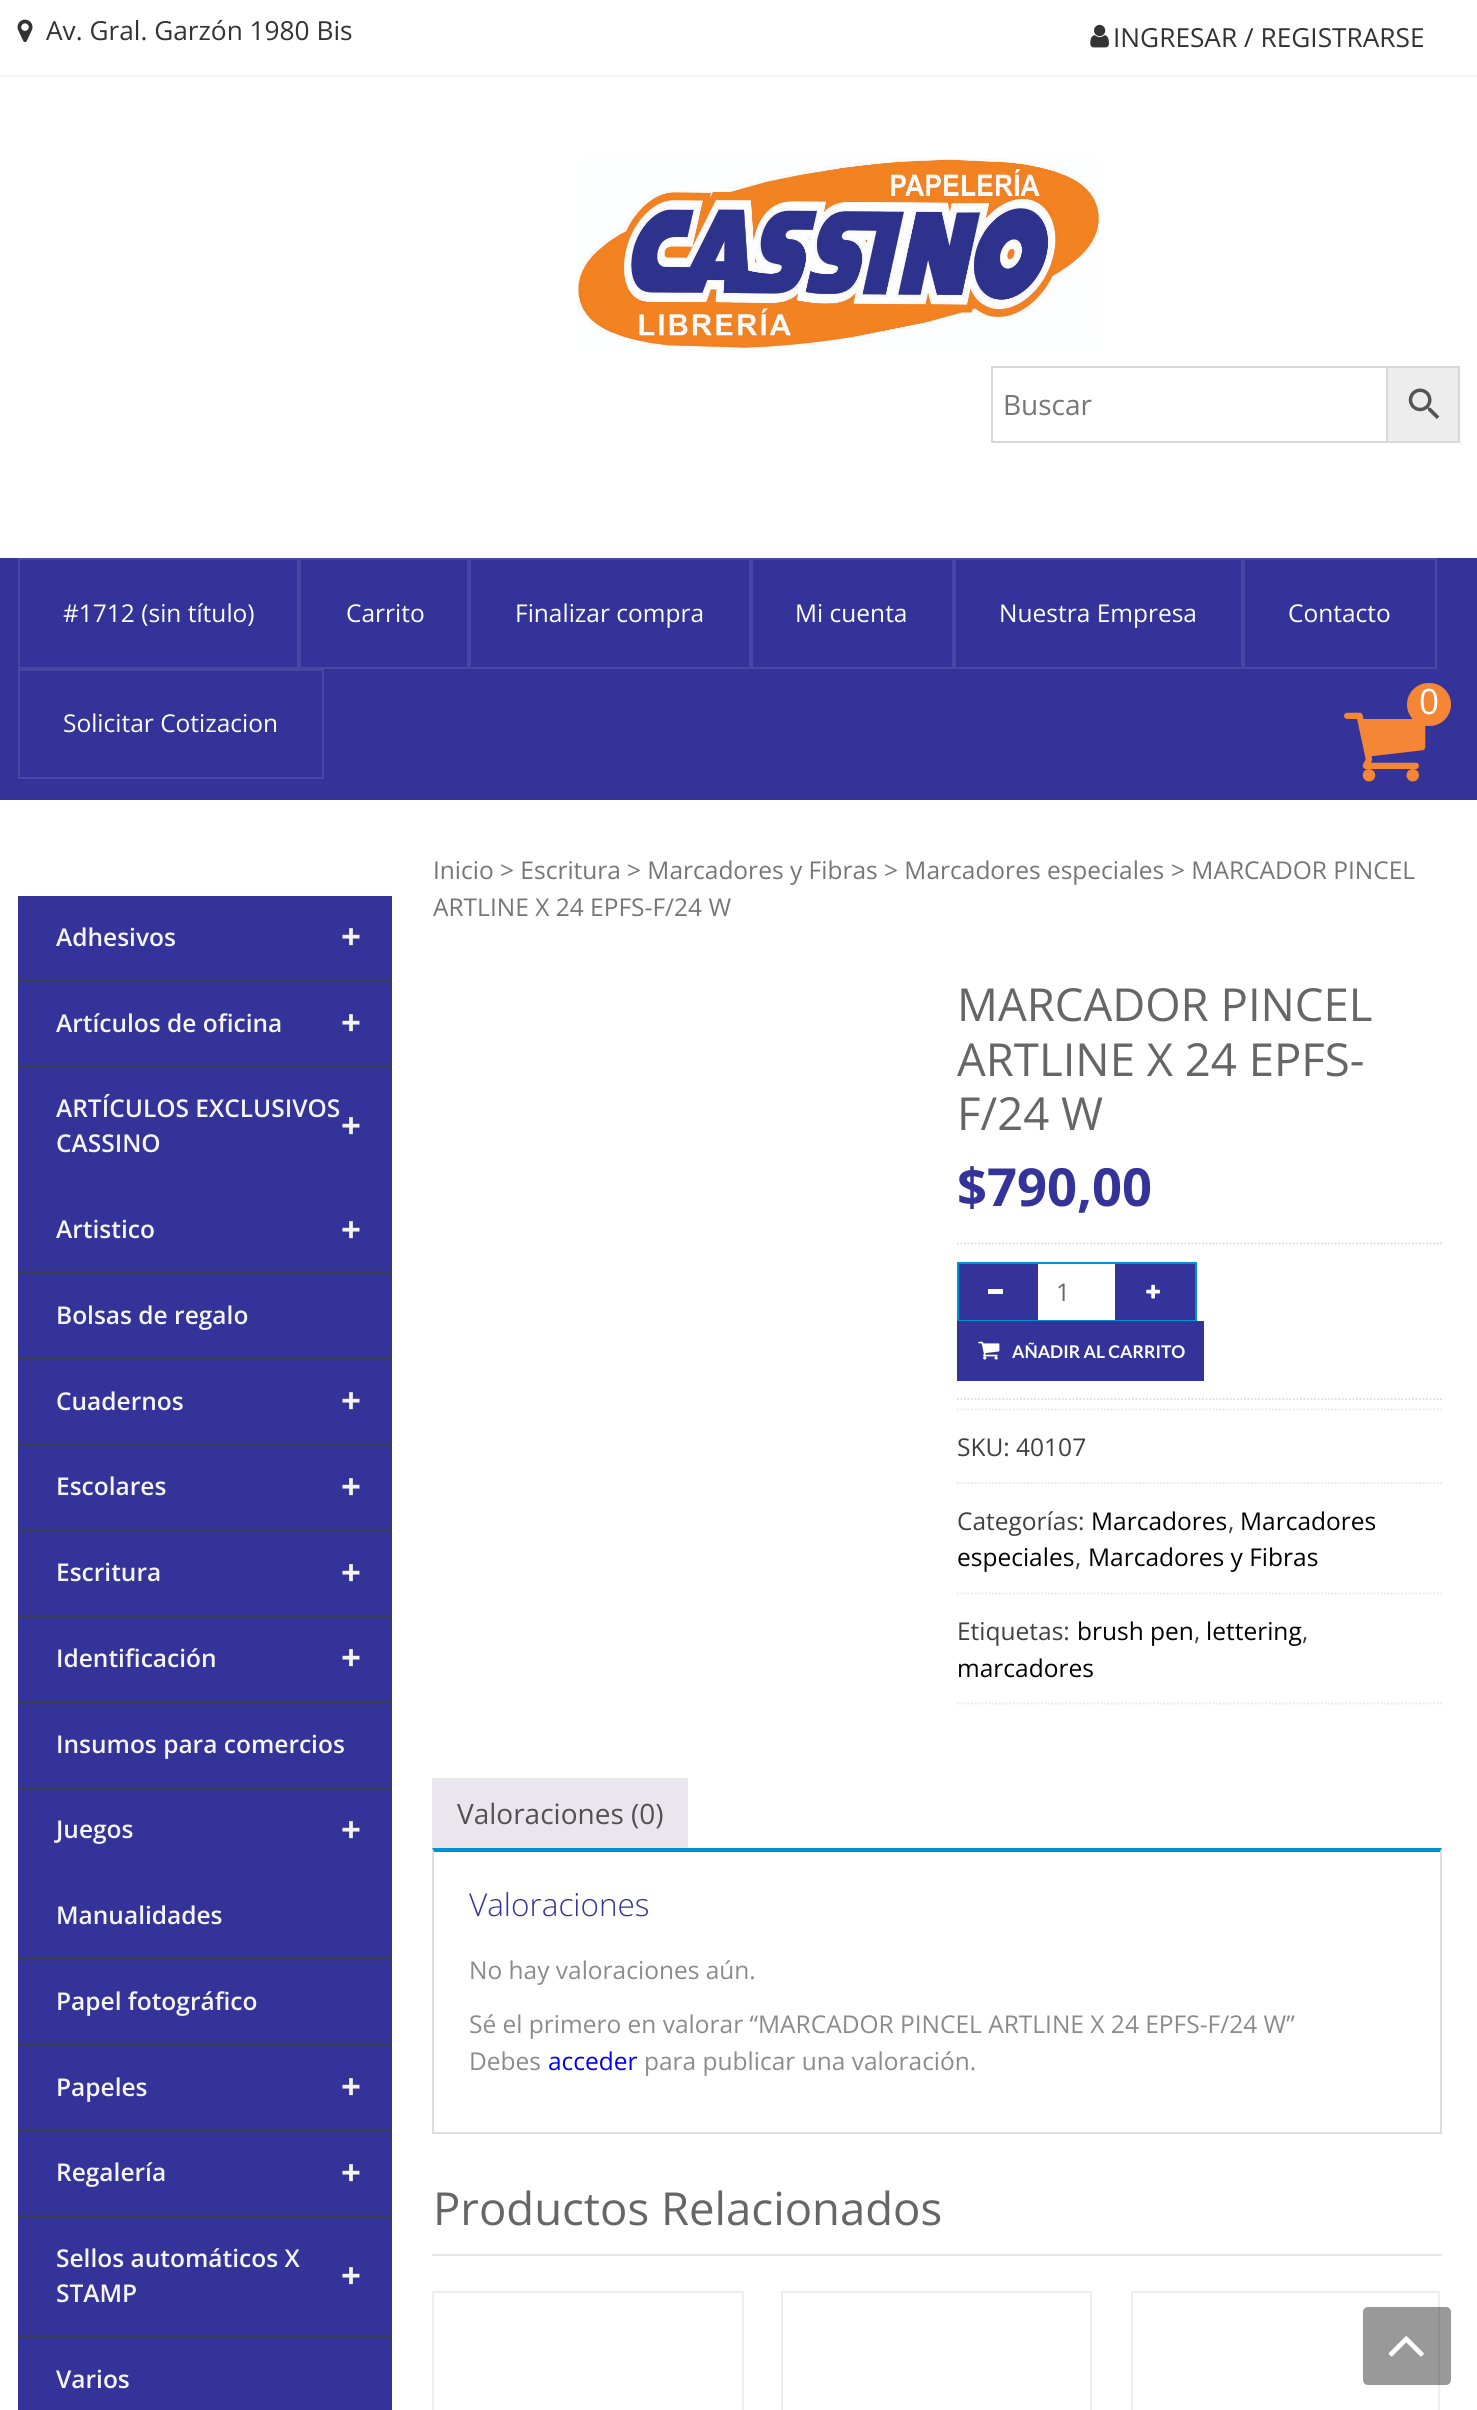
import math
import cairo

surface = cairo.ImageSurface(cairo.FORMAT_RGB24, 1477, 2410)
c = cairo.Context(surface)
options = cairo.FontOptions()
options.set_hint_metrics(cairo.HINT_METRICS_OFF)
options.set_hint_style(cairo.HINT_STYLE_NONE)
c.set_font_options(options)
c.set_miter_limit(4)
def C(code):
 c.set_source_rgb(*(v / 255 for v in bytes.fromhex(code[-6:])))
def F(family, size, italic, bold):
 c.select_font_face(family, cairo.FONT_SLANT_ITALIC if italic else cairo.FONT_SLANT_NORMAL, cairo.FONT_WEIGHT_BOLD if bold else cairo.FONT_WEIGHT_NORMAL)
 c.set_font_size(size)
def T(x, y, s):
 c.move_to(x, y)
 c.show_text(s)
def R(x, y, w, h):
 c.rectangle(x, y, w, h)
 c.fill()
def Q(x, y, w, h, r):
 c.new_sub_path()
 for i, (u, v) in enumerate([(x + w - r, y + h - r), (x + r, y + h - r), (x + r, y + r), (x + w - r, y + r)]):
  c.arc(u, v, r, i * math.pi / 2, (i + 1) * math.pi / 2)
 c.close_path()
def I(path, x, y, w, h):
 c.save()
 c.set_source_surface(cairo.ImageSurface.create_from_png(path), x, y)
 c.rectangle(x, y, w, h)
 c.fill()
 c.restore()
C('ffffff')
c.paint()
C('f7f7f7')
R(0,75,1477,2)
I('1.png',17,19,16,24)
F('Open Sans',26.25,0,0)
C('333333')
T(46,40,'Av. Gral. Garzón 1980 Bis')
I('2.png',1090,24,19,24)
T(1113,47,'INGRESAR / REGISTRARSE')
I('3.png',578,158,522,192)
C('ededed')
c.rectangle(1387,367,72,75)
c.fill_preserve()
C('d8d8d8')
c.stroke()
c.rectangle(992,367,395,75)
c.stroke()
F('Open Sans',28,0,0)
C('767676')
T(1003,415,'Buscar')
I('4.png',1408,388,32,31)
C('343399')
R(0,558,1477,242)
c.rectangle(19,559,279,109)
C('4847a3')
c.stroke()
F('Open Sans',24.5,0,0)
C('ffffff')
T(63,622,'#1712 (sin título)')
c.rectangle(300,559,168,109)
C('4847a3')
c.stroke()
C('ffffff')
T(346,622,'Carrito')
c.rectangle(470,559,280,109)
C('4847a3')
c.stroke()
C('ffffff')
T(515,622,'Finalizar compra')
c.rectangle(752,559,201,109)
C('4847a3')
c.stroke()
C('ffffff')
T(795,622,'Mi cuenta')
c.rectangle(955,559,287,109)
C('4847a3')
c.stroke()
C('ffffff')
T(999,622,'Nuestra Empresa')
c.rectangle(1244,559,192,109)
C('4847a3')
c.stroke()
C('ffffff')
T(1288,622,'Contacto')
c.rectangle(19,670,304,108)
C('4847a3')
c.stroke()
C('ffffff')
T(63,732,'Solicitar Cotizacion')
I('5.png',1344,712,82,70)
C('f58635')
Q(1407,683,44,43,21.5)
c.fill()
F('Open Sans',35,0,0)
C('ffffff')
T(1419,714,'0')
C('343399')
R(18,896,374,84)
C('383f4a')
R(18,980,374,2)
F('Open Sans SemiBold',24.5,0,0)
C('f5f5f5')
T(56,946,'Adhesivos')
F('Open Sans',35,0,1)
T(341,949,'+')
C('343399')
R(18,982,374,84)
C('383f4a')
R(18,1066,374,2)
F('Open Sans SemiBold',24.5,0,0)
C('f5f5f5')
T(56,1032,'Artículos de oficina')
F('Open Sans',35,0,1)
T(341,1035,'+')
C('343399')
R(18,1068,374,119)
C('383f4a')
R(18,1187,374,1)
F('Open Sans SemiBold',24.5,0,0)
C('f5f5f5')
T(56,1117,'ARTÍCULOS EXCLUSIVOS')
F('Open Sans',35,0,1)
T(341,1138,'+')
F('Open Sans SemiBold',24.5,0,0)
T(56,1152,'CASSINO')
C('343399')
R(18,1188,374,84)
C('383f4a')
R(18,1272,374,2)
C('f5f5f5')
T(56,1238,'Artistico')
F('Open Sans',35,0,1)
T(341,1242,'+')
C('343399')
R(18,1274,374,84)
C('383f4a')
R(18,1358,374,2)
F('Open Sans SemiBold',24.5,0,0)
C('f5f5f5')
T(56,1324,'Bolsas de regalo')
C('343399')
R(18,1360,374,84)
C('383f4a')
R(18,1444,374,2)
C('f5f5f5')
T(56,1410,'Cuadernos')
F('Open Sans',35,0,1)
T(341,1413,'+')
C('343399')
R(18,1446,374,84)
C('383f4a')
R(18,1530,374,1)
F('Open Sans SemiBold',24.5,0,0)
C('f5f5f5')
T(56,1495,'Escolares')
F('Open Sans',35,0,1)
T(341,1499,'+')
C('343399')
R(18,1531,374,84)
C('383f4a')
R(18,1615,374,2)
F('Open Sans SemiBold',24.5,0,0)
C('f5f5f5')
T(56,1581,'Escritura')
F('Open Sans',35,0,1)
T(341,1585,'+')
C('343399')
R(18,1617,374,84)
C('383f4a')
R(18,1701,374,2)
F('Open Sans SemiBold',24.5,0,0)
C('f5f5f5')
T(56,1667,'Identificación')
F('Open Sans',35,0,1)
T(341,1670,'+')
C('343399')
R(18,1703,374,84)
C('383f4a')
R(18,1787,374,2)
F('Open Sans SemiBold',24.5,0,0)
C('f5f5f5')
T(56,1753,'Insumos para comercios')
C('343399')
R(18,1789,374,84)
C('383f4a')
R(18,1873,374,1)
C('f5f5f5')
T(56,1838,'Juegos')
F('Open Sans',35,0,1)
T(341,1842,'+')
C('343399')
R(18,1874,374,84)
C('383f4a')
R(18,1958,374,2)
F('Open Sans SemiBold',24.5,0,0)
C('f5f5f5')
T(56,1924,'Manualidades')
C('343399')
R(18,1960,374,84)
C('383f4a')
R(18,2044,374,2)
C('f5f5f5')
T(56,2010,'Papel fotográfico')
C('343399')
R(18,2046,374,84)
C('383f4a')
R(18,2130,374,2)
C('f5f5f5')
T(56,2096,'Papeles')
F('Open Sans',35,0,1)
T(341,2099,'+')
C('343399')
R(18,2132,374,84)
C('383f4a')
R(18,2216,374,1)
F('Open Sans SemiBold',24.5,0,0)
C('f5f5f5')
T(56,2181,'Regalería')
F('Open Sans',35,0,1)
T(341,2185,'+')
C('343399')
R(18,2217,374,119)
C('383f4a')
R(18,2336,374,2)
F('Open Sans SemiBold',24.5,0,0)
C('f5f5f5')
T(56,2267,'Sellos automáticos X')
F('Open Sans',35,0,1)
T(341,2288,'+')
F('Open Sans SemiBold',24.5,0,0)
T(56,2302,'STAMP')
C('343399')
R(18,2338,374,72)
C('f5f5f5')
T(56,2388,'Varios')
F('Open Sans',24.5,0,0)
C('767676')
T(433,879,'Inicio')
T(500,879,'> Escritura')
T(627,879,'> Marcadores y Fibras')
T(884,879,'> Marcadores especiales')
T(1171,879,'> MARCADOR PINCEL')
T(433,916,'ARTLINE X 24 EPFS-F/24 W')
F('Open Sans',45.5,0,0)
C('666666')
T(957,1021,'MARCADOR PINCEL')
T(957,1076,'ARTLINE X 24 EPFS-')
T(957,1130,'F/24 W')
F('Open Sans',52.5,0,1)
C('343399')
T(957,1206,'$790,00')
c.new_path()
c.move_to(957,1243.5)
c.line_to(1442,1243.5)
C('dddddd')
c.set_line_width(1.8)
c.set_dash([1.75,1.75])
c.stroke()
c.new_path()
c.move_to(957,1399)
c.line_to(1442,1399)
c.stroke()
c.rectangle(958,1263,238,57)
C('0091d5')
c.set_line_width(2)
c.set_dash([])
c.stroke()
C('343399')
R(959,1264,79,56)
C('ffffff')
R(988,1289,15,5)
R(1038,1319,77,1)
C('343399')
R(1115,1264,80,56)
F('Open Sans',24.5,0,0)
C('666666')
T(1056,1301,'1')
I('6.png',1146,1284,14,15)
C('343399')
R(957,1321,247,60)
I('7.png',978,1341,22,19)
F('Lato',17.5,0,1)
C('ffffff')
T(1012,1358,'AÑADIR AL CARRITO')
c.new_path()
c.move_to(957,1409.5)
c.line_to(1442,1409.5)
C('e7e7e7')
c.set_line_width(1.8)
c.set_dash([1.75,1.75])
c.stroke()
c.new_path()
c.move_to(957,1483)
c.line_to(1442,1483)
c.stroke()
F('Open Sans',24.5,0,0)
C('404040')
T(957,1456,'SKU: 40107')
c.new_path()
c.move_to(957,1593.5)
c.line_to(1442,1593.5)
C('e7e7e7')
c.stroke()
C('404040')
T(957,1530,'Categorías:')
C('000000')
T(1091,1530,'Marcadores')
C('404040')
T(1228,1530,',')
C('000000')
T(1240,1530,'Marcadores')
T(957,1566,'especiales')
C('404040')
T(1075,1566,',')
C('000000')
T(1088,1566,'Marcadores y Fibras')
c.new_path()
c.move_to(957,1703.5)
c.line_to(1442,1703.5)
C('e7e7e7')
c.stroke()
C('404040')
T(957,1640,'Etiquetas:')
C('000000')
T(1077,1640,'brush pen')
C('404040')
T(1194,1640,',')
C('000000')
T(1206,1640,'lettering')
C('404040')
T(1302,1640,',')
C('000000')
T(957,1677,'marcadores')
C('e9e6ed')
R(432,1778,256,70)
F('Open Sans',28,0,0)
C('515151')
T(457,1824,'Valoraciones (0)')
C('0091d5')
c.new_path()
c.move_to(432,1848)
c.line_to(1442,1848)
c.line_to(1440,1852)
c.line_to(434,1852)
c.close_path()
c.fill()
C('dddddd')
c.new_path()
c.move_to(1442,1848)
c.line_to(1442,2133)
c.line_to(1440,2132)
c.line_to(1440,1852)
c.close_path()
c.fill()
R(432,2132,1010,2)
c.new_path()
c.move_to(432,2133)
c.line_to(432,1848)
c.line_to(434,1852)
c.line_to(434,2132)
c.close_path()
c.fill()
F('Open Sans Light',31.5,0,0)
C('343399')
T(469,1916,'Valoraciones')
F('Open Sans',24.5,0,0)
C('8b8b8b')
T(469,1979,'No hay valoraciones aún.')
T(469,2033,'Sé el primero en valorar “MARCADOR PINCEL ARTLINE X 24 EPFS-F/24 W”')
T(469,2070,'Debes')
C('0000ee')
T(548,2070,'acceder')
C('8b8b8b')
T(644,2070,'para publicar una valoración.')
C('e6e6e6')
R(432,2254,1010,2)
F('Open Sans',45.5,0,0)
C('666666')
T(433,2225,'Productos Relacionados')
c.rectangle(433,2292,310,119)
C('eeeeee')
c.set_line_width(2)
c.set_dash([])
c.stroke()
c.rectangle(782,2292,309,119)
c.stroke()
c.rectangle(1132,2292,307,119)
c.stroke()
c.set_source_rgba(0,0,0,0.4)
Q(1363,2307,88,78,5)
c.fill()
I('8.png',1388,2336,36,21)
surface.write_to_png('o.png')
